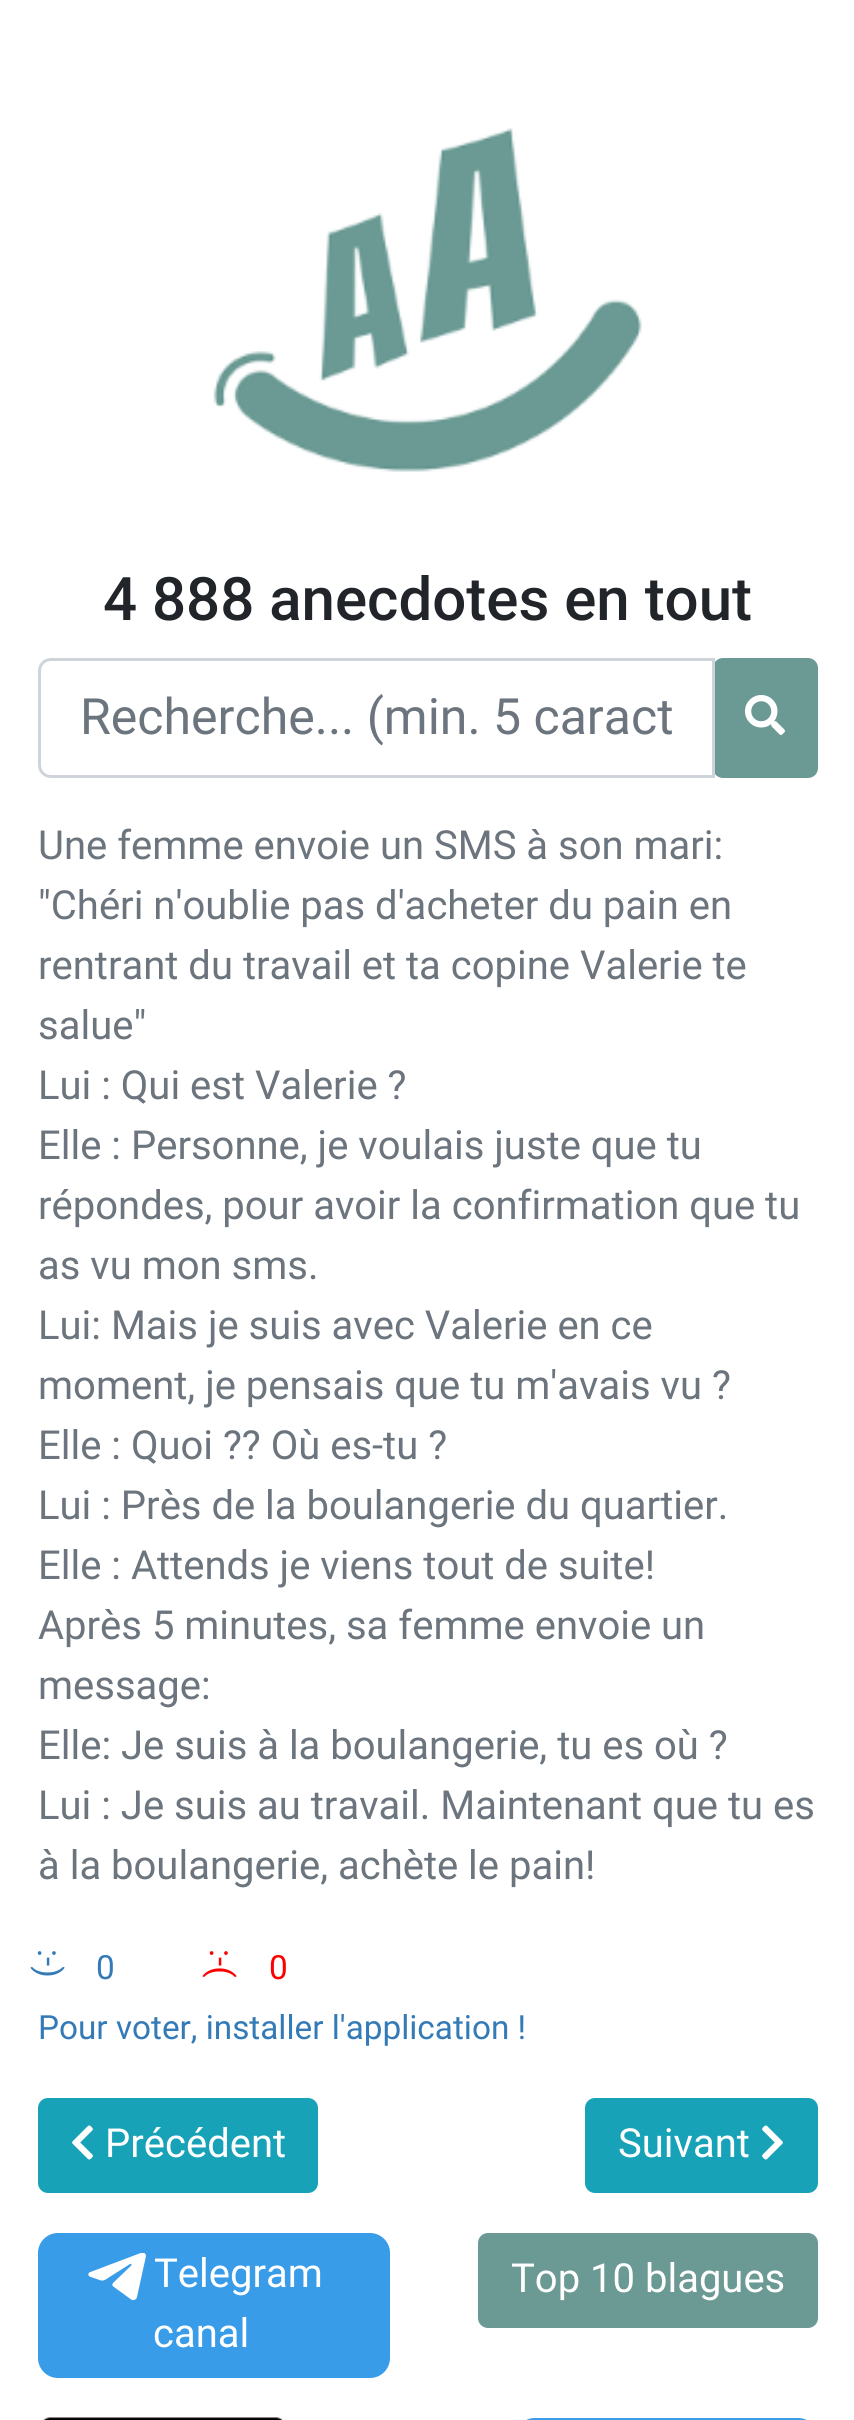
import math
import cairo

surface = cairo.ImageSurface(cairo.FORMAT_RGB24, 854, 2420)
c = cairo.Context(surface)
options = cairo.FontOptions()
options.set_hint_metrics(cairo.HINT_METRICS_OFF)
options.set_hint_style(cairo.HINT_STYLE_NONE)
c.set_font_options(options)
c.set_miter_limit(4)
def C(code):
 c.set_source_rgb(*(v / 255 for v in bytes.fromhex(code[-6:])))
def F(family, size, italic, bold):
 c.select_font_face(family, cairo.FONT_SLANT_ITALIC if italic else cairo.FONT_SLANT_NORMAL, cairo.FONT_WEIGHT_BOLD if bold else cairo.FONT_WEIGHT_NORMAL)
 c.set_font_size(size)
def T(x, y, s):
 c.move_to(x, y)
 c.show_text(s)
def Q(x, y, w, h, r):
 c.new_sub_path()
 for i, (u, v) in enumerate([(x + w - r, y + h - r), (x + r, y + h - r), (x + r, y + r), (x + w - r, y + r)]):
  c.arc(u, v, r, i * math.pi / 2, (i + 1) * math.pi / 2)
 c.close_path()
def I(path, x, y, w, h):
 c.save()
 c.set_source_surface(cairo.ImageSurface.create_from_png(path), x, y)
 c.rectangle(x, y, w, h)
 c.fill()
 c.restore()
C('ffffff')
c.paint()
I('1.png',213,128,429,344)
F('Roboto Medium',60,0,0)
C('212529')
T(103,620,'4 888 anecdotes en tout')
C('6b9a94')
Q(714.5,659.5,102,117,8.5)
c.fill_preserve()
c.set_line_width(3)
c.stroke()
c.new_path()
c.move_to(51,659.5)
c.line_to(713.5,659.5)
c.line_to(713.5,776.5)
c.line_to(51,776.5)
c.curve_to(44.5,776.5,39.5,771.5,39.5,765)
c.line_to(39.5,671)
c.curve_to(39.5,664.5,44.5,659.5,51,659.5)
c.close_path()
C('ced4da')
c.stroke()
F('Roboto',50,0,0)
C('6c757d')
T(80,734,'Recherche... (min. 5 caract')
I('2.png',745,695,40,40)
F('Roboto',40,0,0)
T(38,859,'Une femme envoie un SMS à son mari:')
T(38,919,'"Chéri n\'oublie pas d\'acheter du pain en')
T(38,979,'rentrant du travail et ta copine Valerie te')
T(38,1039,'salue"')
T(38,1099,'Lui : Qui est Valerie ?')
T(38,1159,'Elle : Personne, je voulais juste que tu')
T(38,1219,'répondes, pour avoir la confirmation que tu')
T(38,1279,'as vu mon sms.')
T(38,1339,'Lui: Mais je suis avec Valerie en ce')
T(38,1399,'moment, je pensais que tu m\'avais vu ?')
T(38,1459,'Elle : Quoi ?? Où es-tu ?')
T(38,1519,'Lui : Près de la boulangerie du quartier.')
T(38,1579,'Elle : Attends je viens tout de suite!')
T(38,1639,'Après 5 minutes, sa femme envoie un')
T(38,1699,'message:')
T(38,1759,'Elle: Je suis à la boulangerie, tu es où ?')
T(38,1819,'Lui : Je suis au travail. Maintenant que tu es')
T(38,1879,'à la boulangerie, achète le pain!')
F('Roboto',33.3,0,0)
C('337ab7')
c.save()
c.translate(38,1949)
c.rotate(90 * math.pi / 180)
T(0,0,':-)')
c.restore()
T(96,1979,'0')
C('ff0000')
c.save()
c.translate(210,1949)
c.rotate(90 * math.pi / 180)
T(0,0,':-(')
c.restore()
T(269,1979,'0')
C('337ab7')
T(38,2039,'Pour voter, installer l\'application !')
C('17a2b8')
Q(39.5,2099.5,277,92,8.5)
c.fill_preserve()
c.stroke()
I('3.png',72,2125,21,35)
F('Roboto',40,0,0)
C('ffffff')
T(105,2157,'Précédent')
C('17a2b8')
Q(586.5,2099.5,230,92,8.5)
c.fill_preserve()
c.stroke()
C('ffffff')
T(618,2157,'Suivant')
I('4.png',762,2125,21,35)
C('389ce9')
Q(38,2233,352,145,20)
c.fill()
I('5.png',88,2253,58,48)
C('ffffff')
T(154,2287,'Telegram')
T(153,2347,'canal')
C('6b9a94')
Q(479.5,2234.5,337,92,8.5)
c.fill_preserve()
c.stroke()
C('ffffff')
T(511,2292,'Top 10 blagues')
I('6.png',43,2417,240,3)
C('389ce9')
Q(515,2418,303,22,20)
c.fill()
surface.write_to_png('o.png')
